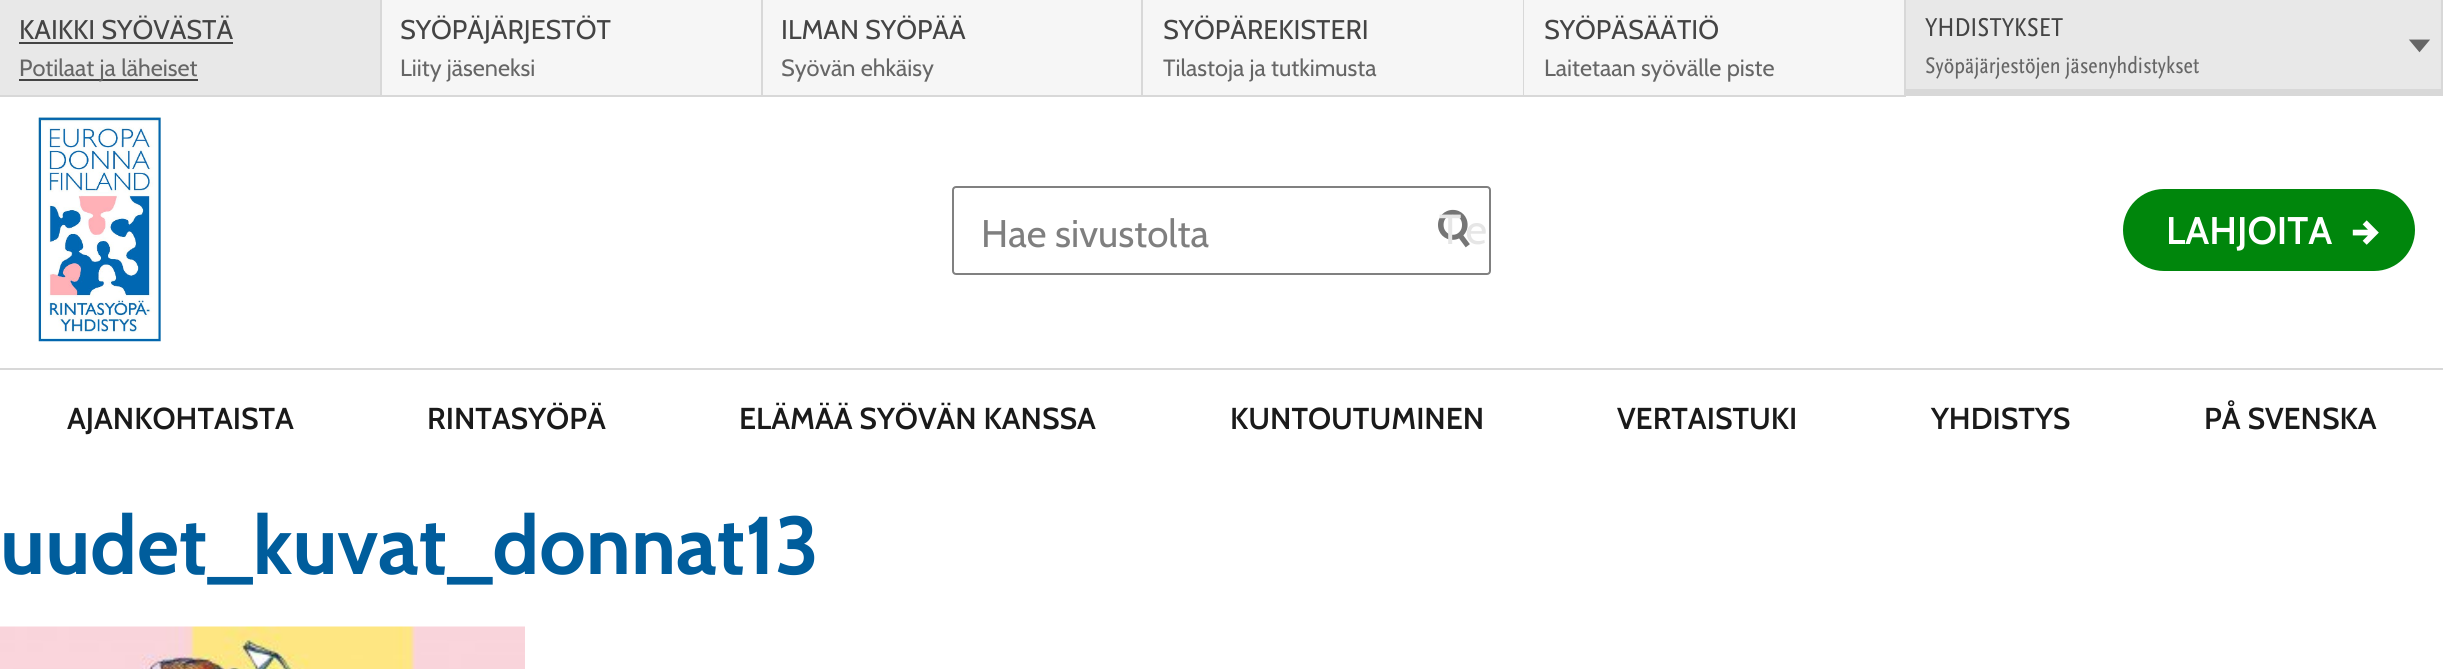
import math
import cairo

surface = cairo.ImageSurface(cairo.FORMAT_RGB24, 2443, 669)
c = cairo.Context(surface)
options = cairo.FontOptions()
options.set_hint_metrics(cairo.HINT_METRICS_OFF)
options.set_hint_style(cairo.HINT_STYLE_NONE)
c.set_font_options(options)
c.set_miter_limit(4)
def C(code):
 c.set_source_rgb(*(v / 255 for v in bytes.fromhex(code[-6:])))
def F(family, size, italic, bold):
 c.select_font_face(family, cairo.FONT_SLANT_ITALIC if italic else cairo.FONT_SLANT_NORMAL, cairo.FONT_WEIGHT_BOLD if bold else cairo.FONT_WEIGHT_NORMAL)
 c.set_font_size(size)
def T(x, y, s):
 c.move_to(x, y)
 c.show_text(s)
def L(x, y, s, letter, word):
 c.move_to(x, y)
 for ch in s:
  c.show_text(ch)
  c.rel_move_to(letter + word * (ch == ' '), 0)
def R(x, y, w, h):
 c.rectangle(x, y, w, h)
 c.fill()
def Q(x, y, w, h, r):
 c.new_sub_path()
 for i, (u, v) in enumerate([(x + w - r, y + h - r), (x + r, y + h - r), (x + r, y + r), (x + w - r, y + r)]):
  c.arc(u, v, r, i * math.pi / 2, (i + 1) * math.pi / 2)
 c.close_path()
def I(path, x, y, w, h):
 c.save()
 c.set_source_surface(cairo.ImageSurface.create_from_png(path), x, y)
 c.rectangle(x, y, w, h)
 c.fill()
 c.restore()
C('ffffff')
c.paint()
C('e8e8e8')
R(0,0,380,95)
C('d8d8d8')
R(380,0,2,96)
R(0,95,382,2)
F('Cabin',27,0,0)
C('444444')
T(19,39,'KAIKKI SYÖVÄSTÄ')
R(19,42,214,2)
R(19,79,179,2)
F('Cabin',23.5,0,0)
C('666666')
T(19,76,'Potilaat ja läheiset')
C('f6f6f6')
R(382,0,379,95)
C('d8d8d8')
R(761,0,2,96)
R(382,95,381,2)
F('Cabin',27,0,0)
C('444444')
T(400,39,'SYÖPÄJÄRJESTÖT')
F('Cabin',23.5,0,0)
C('666666')
T(400,76,'Liity jäseneksi')
C('f6f6f6')
R(763,0,378,95)
C('d8d8d8')
R(1141,0,2,96)
R(763,95,380,2)
F('Cabin',27,0,0)
C('444444')
T(781,39,'ILMAN SYÖPÄÄ')
F('Cabin',23.5,0,0)
C('666666')
T(781,76,'Syövän ehkäisy')
C('f6f6f6')
R(1143,0,380,95)
C('d8d8d8')
R(1523,0,1,96)
R(1143,95,381,2)
F('Cabin',27,0,0)
C('444444')
T(1163,39,'SYÖPÄREKISTERI')
F('Cabin',23.5,0,0)
C('666666')
T(1163,76,'Tilastoja ja tutkimusta')
C('f6f6f6')
R(1524,0,380,95)
C('d8d8d8')
R(1904,0,2,96)
R(1524,95,382,2)
F('Cabin',27,0,0)
C('444444')
T(1544,39,'SYÖPÄSÄÄTIÖ')
F('Cabin',23.5,0,0)
C('666666')
T(1544,76,'Laitetaan syövälle piste')
C('e8e8e8')
R(1906,0,535,89)
C('d8d8d8')
R(2441,0,2,96)
R(1906,89,537,7)
F('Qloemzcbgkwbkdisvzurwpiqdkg',27,0,0)
C('444444')
T(1925,36,'YHDISTYKSET')
F('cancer',23,0,0)
C('666666')
T(2408,56,'↓')
F('Qloemzcbgkwbkdisvzurwpiqdkg',23.5,0,0)
T(1925,73,'Syöpäjärjestöjen jäsenyhdistykset')
I('1.png',38,117,123,225)
Q(953,187,537,87,3)
C('808080')
c.stroke()
F('Cabin',38.5,0,0)
C('7f7f7f')
T(981,247,'Hae sivustolta')
F('cancer',60,0,0)
C('757575')
T(1423,253,'↳')
F('Cabin',42,0,0)
C('e6e6e6')
L(1439,244,'Te',4,0)
C('00860c')
Q(2123,189,292,82,41)
c.fill()
F('Cabin SemiBold',38.5,0,0)
C('ffffff')
T(2166,244,'LAHJOITA')
F('cancer',38.5,0,0)
T(2347,249,'➜')
C('d8d8d8')
R(0,368,2443,2)
F('Cabin SemiBold',30.25,0,0)
C('1a1a1a')
T(67,429,'AJANKOHTAISTA')
T(427,429,'RINTASYÖPÄ')
T(739,429,'ELÄMÄÄ SYÖVÄN KANSSA')
T(1230,429,'KUNTOUTUMINEN')
T(1617,429,'VERTAISTUKI')
T(1931,429,'YHDISTYS')
T(2204,429,'PÅ SVENSKA')
F('Cabin',81.75,0,1)
C('005d9c')
T(0,574,'uudet_kuvat_donnat13')
I('2.png',0,626,525,43)
surface.write_to_png('o.png')
